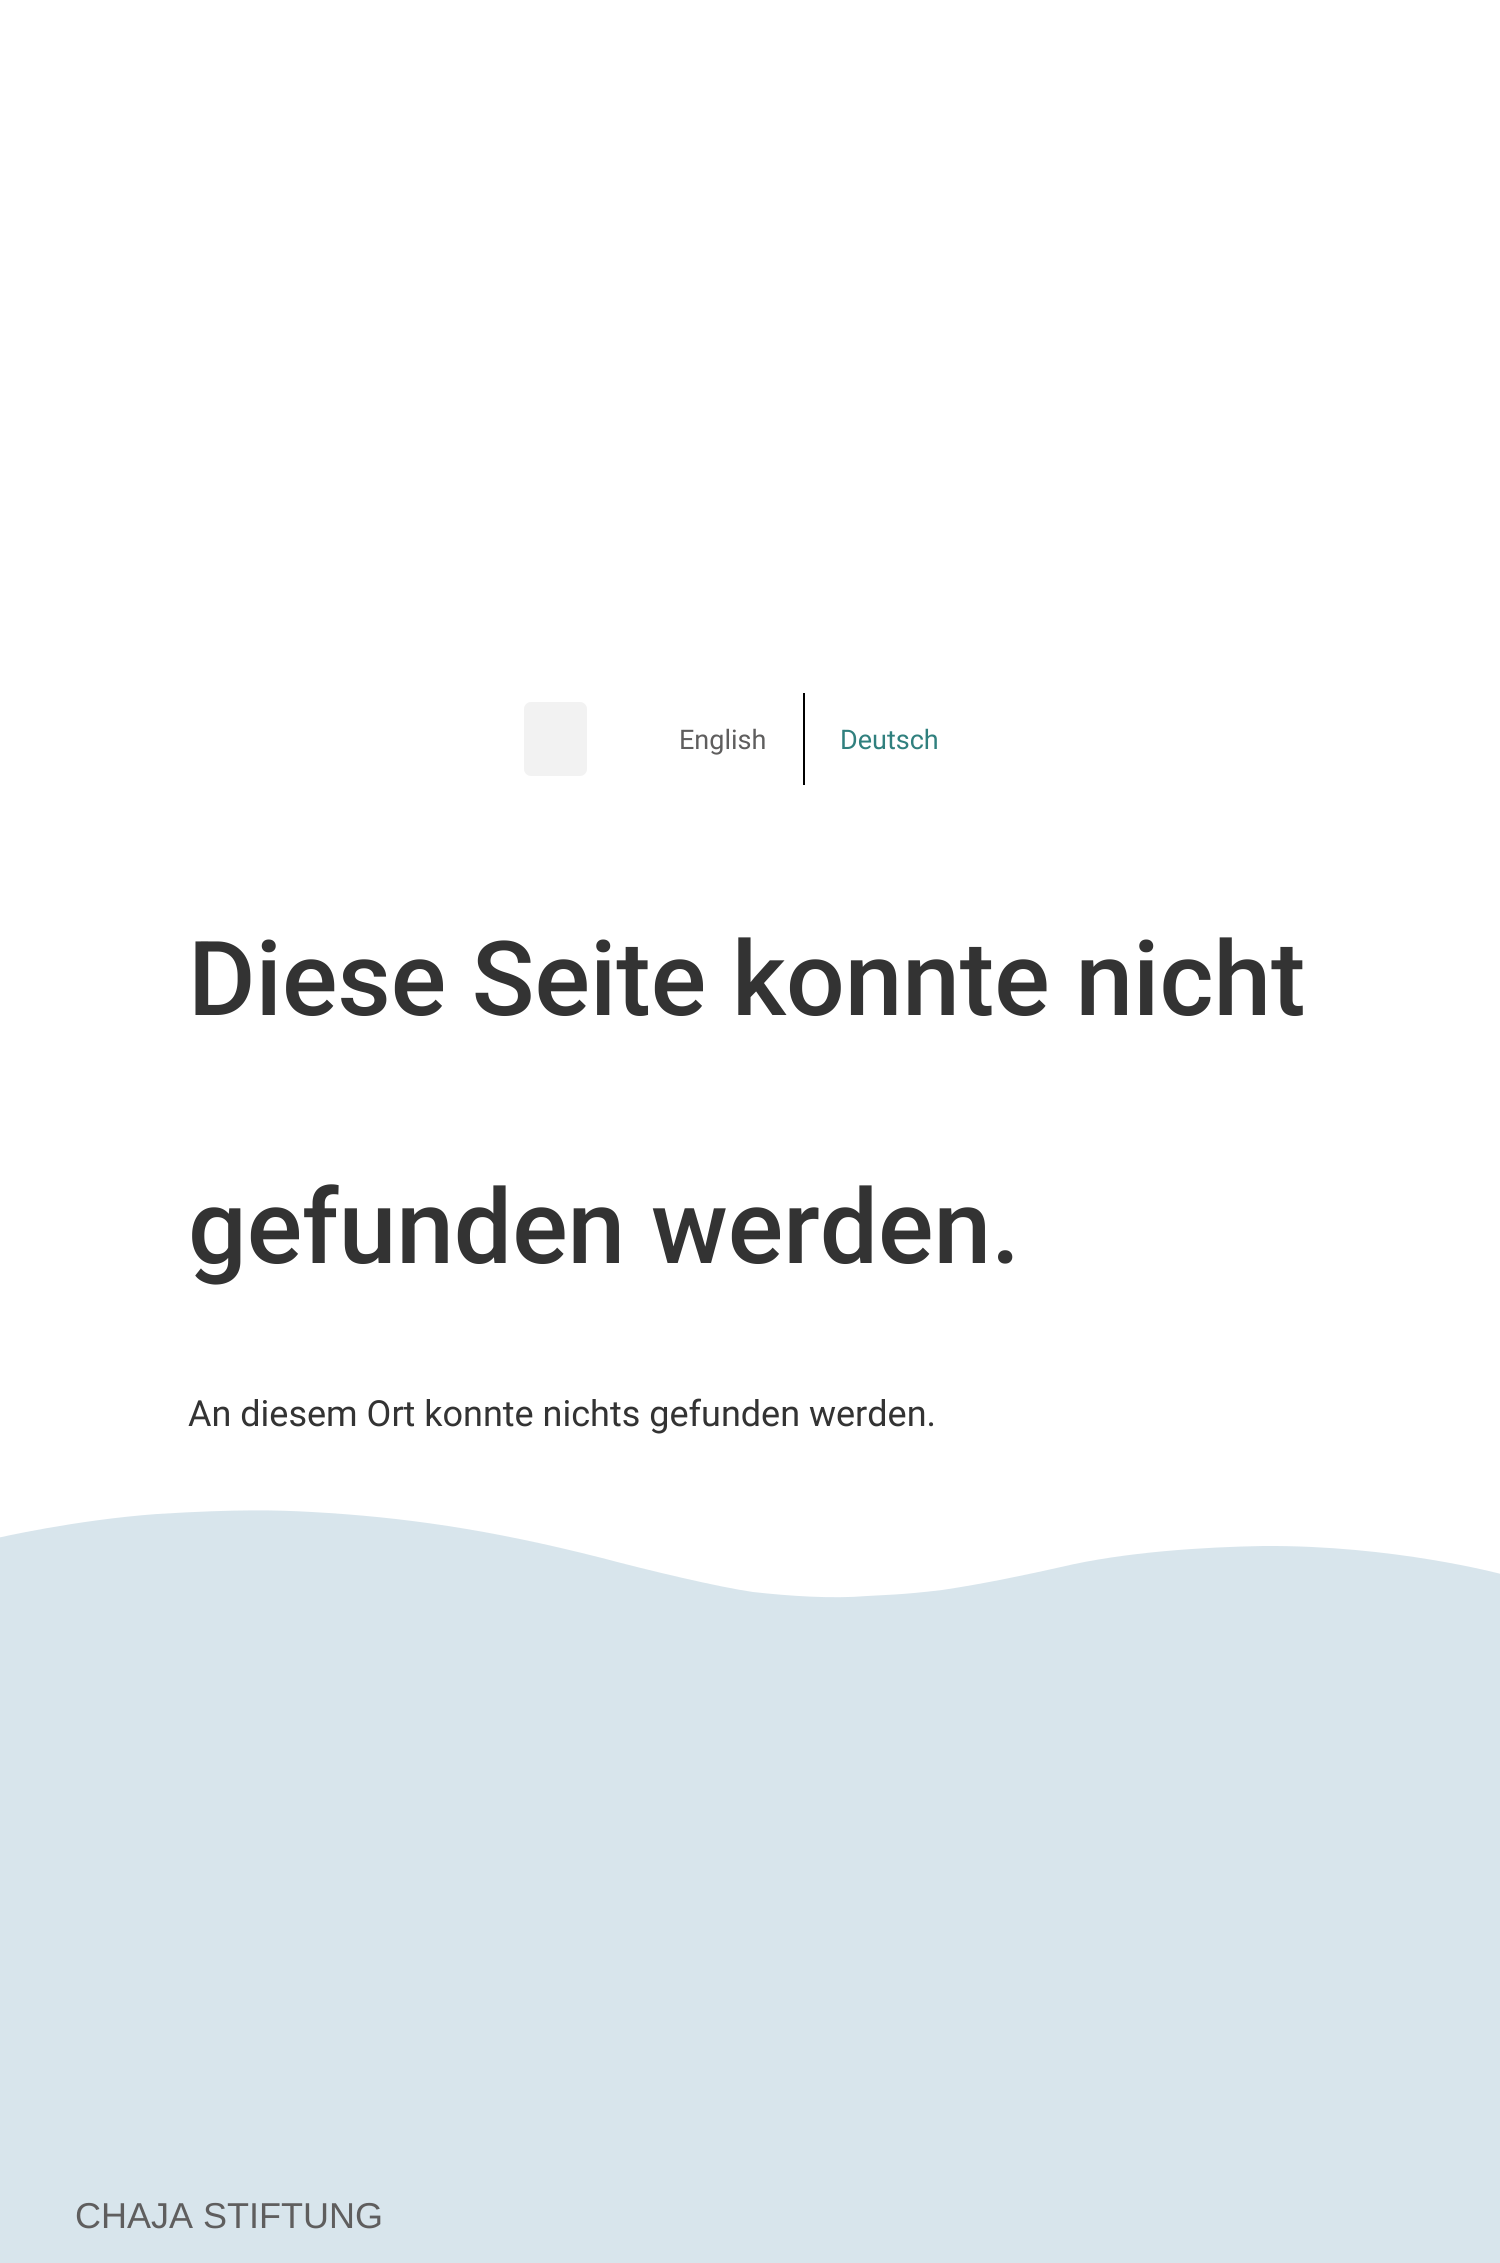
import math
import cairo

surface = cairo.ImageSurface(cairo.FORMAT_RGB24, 1500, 2263)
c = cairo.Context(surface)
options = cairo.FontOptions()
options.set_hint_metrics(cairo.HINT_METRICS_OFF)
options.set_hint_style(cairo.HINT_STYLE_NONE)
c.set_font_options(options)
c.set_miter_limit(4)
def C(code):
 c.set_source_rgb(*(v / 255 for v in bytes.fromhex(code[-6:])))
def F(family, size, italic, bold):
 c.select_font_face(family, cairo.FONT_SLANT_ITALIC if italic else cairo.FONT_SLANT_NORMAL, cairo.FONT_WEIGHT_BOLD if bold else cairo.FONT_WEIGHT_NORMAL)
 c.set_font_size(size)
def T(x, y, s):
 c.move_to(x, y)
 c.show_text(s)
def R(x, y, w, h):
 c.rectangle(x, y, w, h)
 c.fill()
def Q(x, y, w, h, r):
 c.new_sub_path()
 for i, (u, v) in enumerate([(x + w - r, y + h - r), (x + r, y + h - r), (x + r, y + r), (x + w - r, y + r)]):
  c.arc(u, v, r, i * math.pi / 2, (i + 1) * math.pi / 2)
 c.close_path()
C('ffffff')
c.paint()
C('f2f2f2')
Q(524,702,63,74,7)
c.fill()
C('000000')
R(803,693,2,92)
F('Roboto',27,0,0)
C('5f5e5e')
T(679,749,'English')
C('30807e')
T(840,749,'Deutsch')
F('Roboto Medium',103.5,0,0)
C('333333')
T(188,1015,'Diese Seite konnte nicht')
T(188,1263,'gefunden werden.')
F('Roboto',36,0,0)
T(188,1426,'An diesem Ort konnte nichts gefunden werden.')
C('d8e5ec')
R(0,1510,1500,753)
C('ffffff')
c.new_path()
c.move_to(312,1512)
c.curve_to(402,1517,488,1529,602,1558)
c.curve_to(647,1570,718,1587,753,1592)
c.curve_to(789,1596,832,1599,867,1596)
c.curve_to(882,1595,901,1595,942,1590)
c.curve_to(983,1584,1030,1574,1061,1567)
c.curve_to(1124,1552,1204,1547,1263,1546)
c.curve_to(1393,1545,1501,1574,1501,1574)
c.line_to(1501,1506)
c.line_to(-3,1506)
c.line_to(-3,1538)
c.curve_to(-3,1538,75,1520,157,1514)
c.curve_to(239,1509,277,1510,312,1512)
c.close_path()
c.fill()
F('Liberation Sans',36,0,0)
C('5f5e5e')
T(75,2228,'CHAJA STIFTUNG')
surface.write_to_png('o.png')
